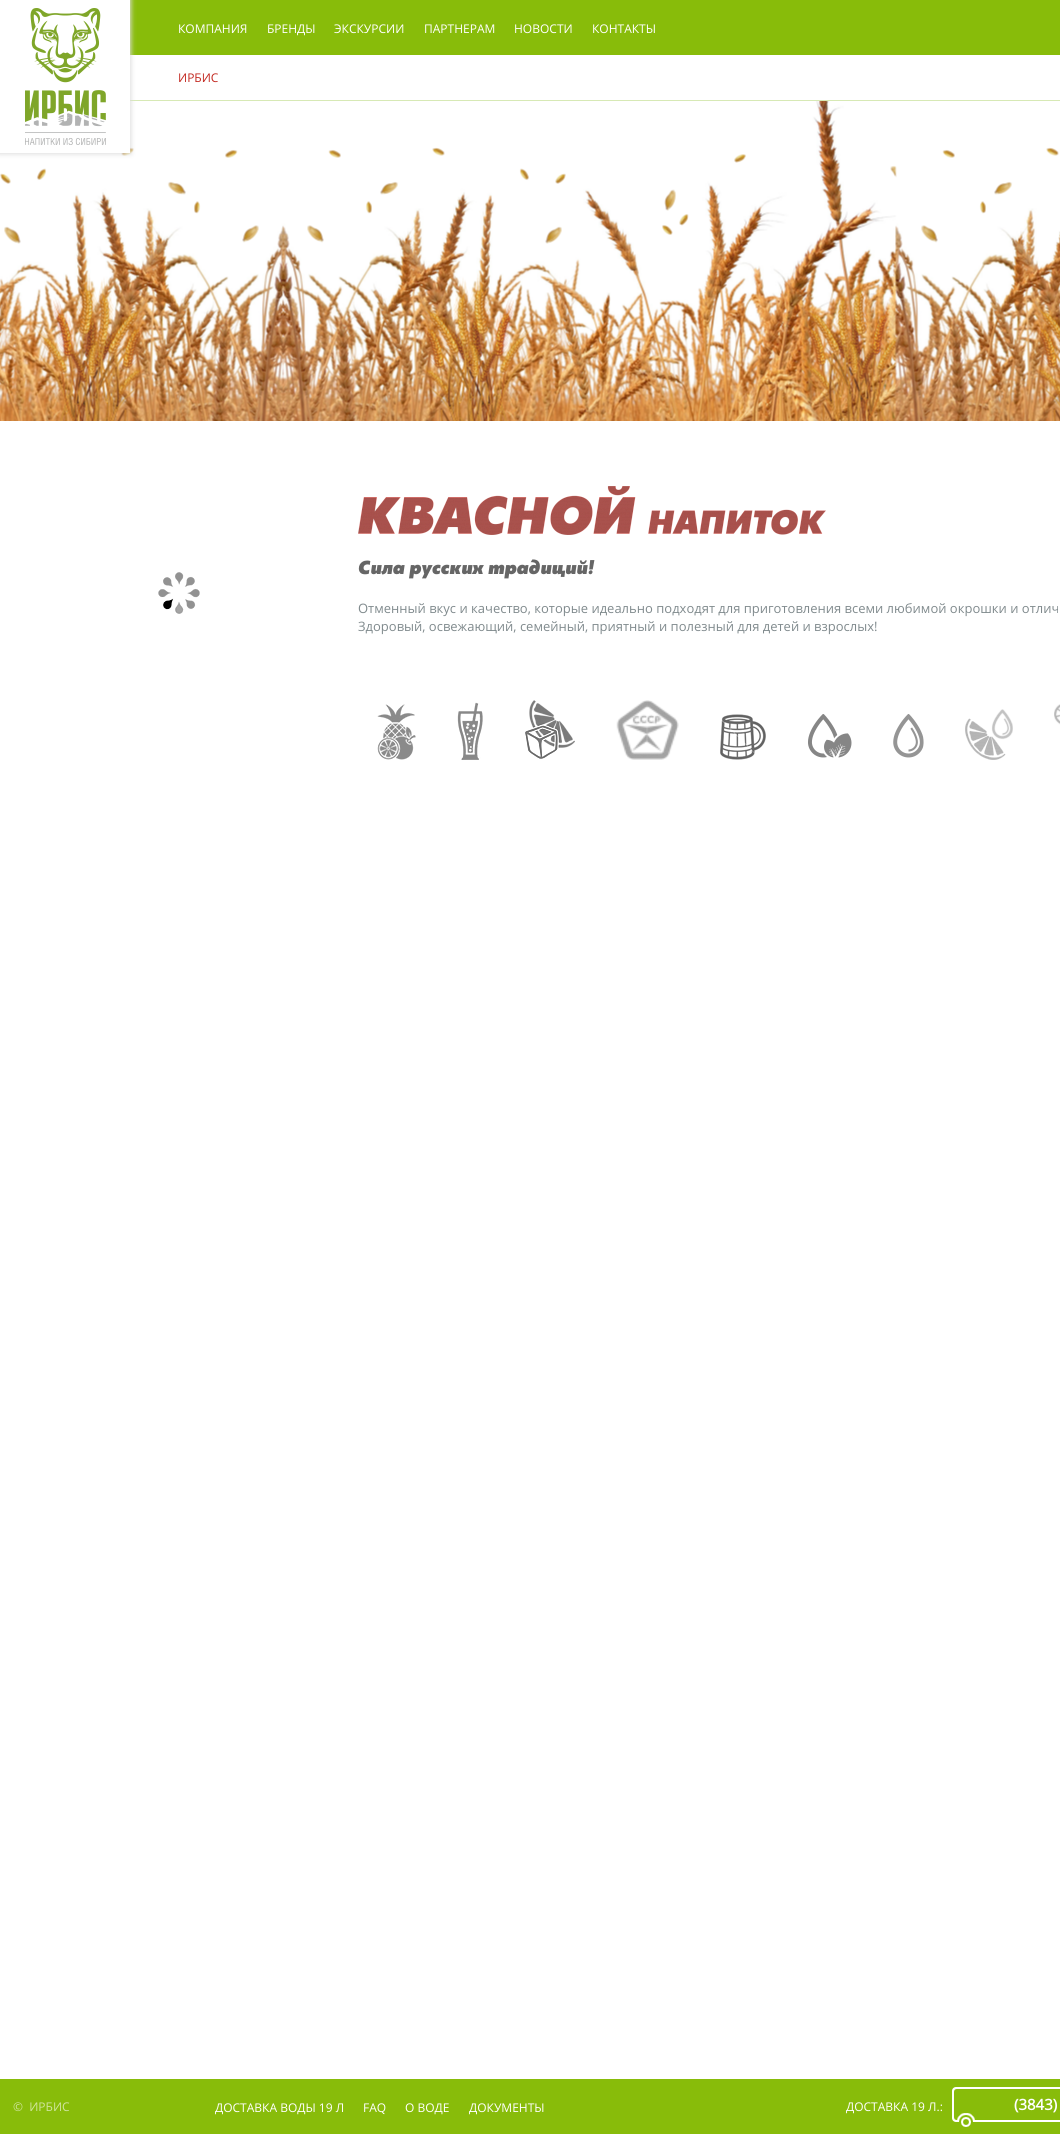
import math
import cairo

surface = cairo.ImageSurface(cairo.FORMAT_RGB24, 1060, 2134)
c = cairo.Context(surface)
options = cairo.FontOptions()
options.set_hint_metrics(cairo.HINT_METRICS_OFF)
options.set_hint_style(cairo.HINT_STYLE_NONE)
c.set_font_options(options)
c.set_miter_limit(4)
def C(code):
 c.set_source_rgb(*(v / 255 for v in bytes.fromhex(code[-6:])))
def F(family, size, italic, bold):
 c.select_font_face(family, cairo.FONT_SLANT_ITALIC if italic else cairo.FONT_SLANT_NORMAL, cairo.FONT_WEIGHT_BOLD if bold else cairo.FONT_WEIGHT_NORMAL)
 c.set_font_size(size)
def T(x, y, s):
 c.move_to(x, y)
 c.show_text(s)
def R(x, y, w, h):
 c.rectangle(x, y, w, h)
 c.fill()
def Q(x, y, w, h, r):
 c.new_sub_path()
 for i, (u, v) in enumerate([(x + w - r, y + h - r), (x + r, y + h - r), (x + r, y + r), (x + w - r, y + r)]):
  c.arc(u, v, r, i * math.pi / 2, (i + 1) * math.pi / 2)
 c.close_path()
def S(x, y, w, h, r, blur, alpha):
 c.push_group_with_content(cairo.CONTENT_ALPHA)
 c.set_operator(cairo.OPERATOR_SOURCE)
 for i in range(15, -16, -2):
  e = blur * i / 6
  if min(w, h) + 2 * e > 0:
   c.set_source_rgba(0, 0, 0, alpha * math.erfc((i - 1) / 8.5) / 2)
   Q(x - e, y - e, w + 2 * e, h + 2 * e, max(0, min(r + e + blur * .6, min(w, h) / 2 + e)))
   c.fill()
 c.mask(c.pop_group())
def I(path, x, y, w, h):
 c.save()
 c.set_source_surface(cairo.ImageSurface.create_from_png(path), x, y)
 c.rectangle(x, y, w, h)
 c.fill()
 c.restore()
C('ffffff')
c.paint()
C('88bc0a')
R(130,0,930,55)
C('d7e9b5')
R(130,100,930,1)
I('2.png',0,101,1060,320)
C('dddddd')
S(-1,-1,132,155,0,2.5,1)
C('ffffff')
R(0,0,130,153)
I('1.png',25,8,81,137)
F('Open Sans',12,0,0)
T(178,33,'КОМПАНИЯ')
T(267,33,'БРЕНДЫ')
T(334,33,'ЭКСКУРСИИ')
T(424,33,'ПАРТНЕРАМ')
T(514,33,'НОВОСТИ')
T(592,33,'КОНТАКТЫ')
C('c32a22')
T(178,82,'ИРБИС')
I('3.png',158,572,42,42)
I('4.png',358,486,468,49)
I('5.png',358,559,237,20)
F('Open Sans',13,0,0)
C('808a8d')
T(358,613,'Отменный вкус и качество, которые идеально подходят для приготовления всеми любимой окрошки и отлич')
T(358,631,'Здоровый, освежающий, семейный, приятный и полезный для детей и взрослых!')
I('6.png',377,704,39,56)
I('7.png',457,702,26,58)
I('8.png',525,700,50,59)
I('9.png',616,700,63,60)
I('10.png',720,714,46,46)
I('11.png',808,714,44,44)
I('12.png',893,714,31,44)
I('13.png',965,709,48,51)
I('14.png',1054,704,6,21)
C('88bc0a')
R(0,2079,1060,55)
F('Open Sans',12,0,0)
C('cfe49d')
T(13,2111,'©  ИРБИС')
C('ffffff')
T(215,2112,'ДОСТАВКА ВОДЫ 19 Л')
T(363,2112,'FAQ')
T(405,2112,'О ВОДЕ')
T(469,2112,'ДОКУМЕНТЫ')
I('15.png',952,2087,108,40)
T(846,2111,'ДОСТАВКА 19 Л.:')
F('Open Sans',15,0,1)
T(1014,2110,'(3843)')
surface.write_to_png('o.png')
